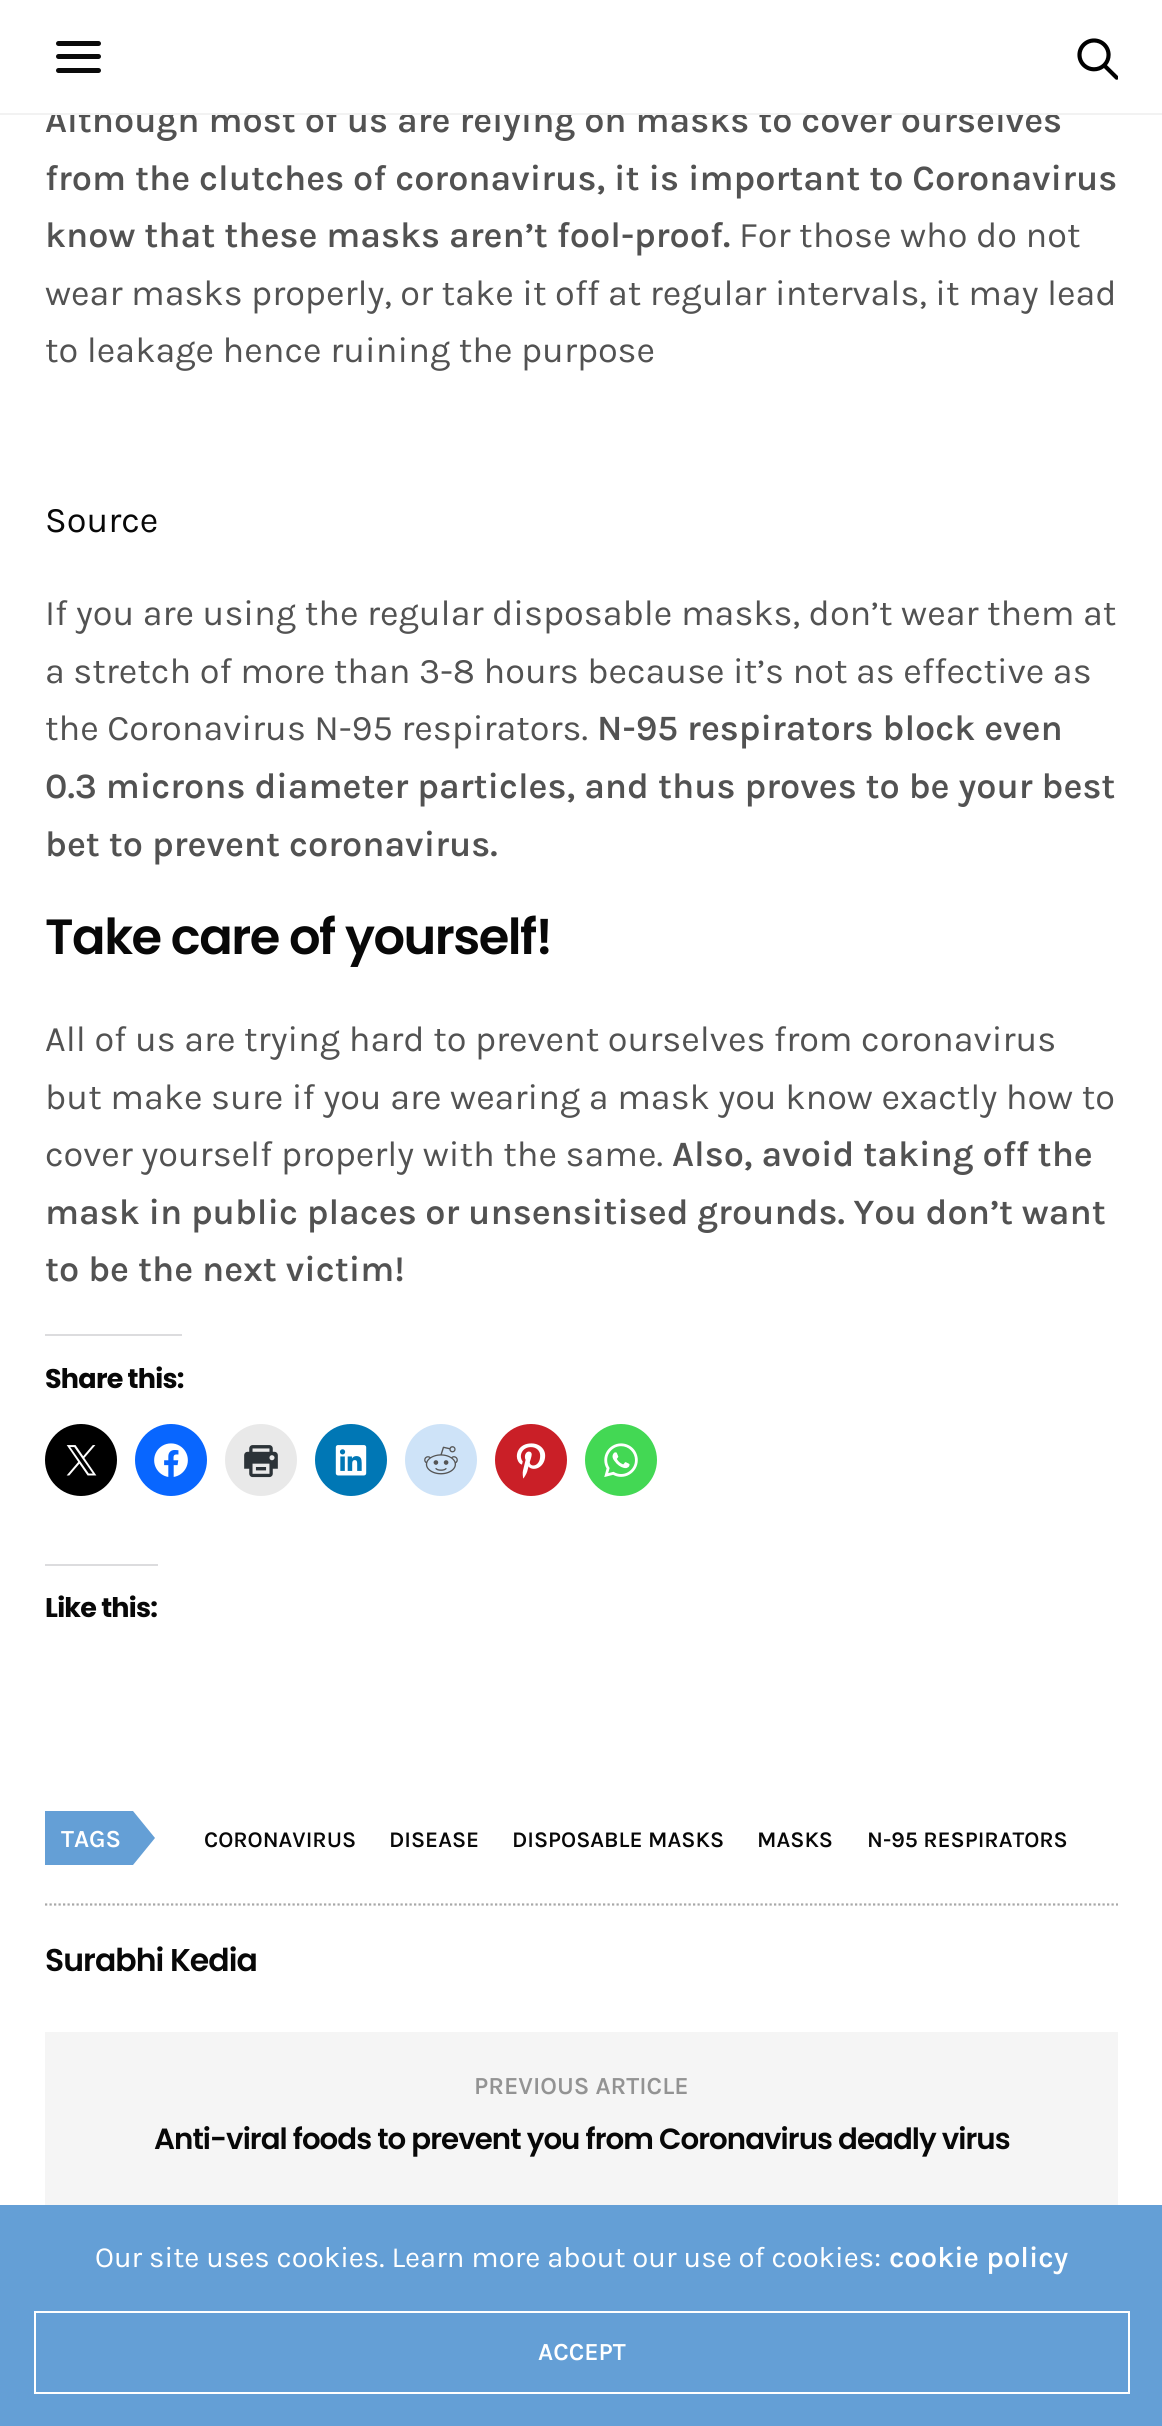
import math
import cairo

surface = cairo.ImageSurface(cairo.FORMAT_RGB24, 1162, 2426)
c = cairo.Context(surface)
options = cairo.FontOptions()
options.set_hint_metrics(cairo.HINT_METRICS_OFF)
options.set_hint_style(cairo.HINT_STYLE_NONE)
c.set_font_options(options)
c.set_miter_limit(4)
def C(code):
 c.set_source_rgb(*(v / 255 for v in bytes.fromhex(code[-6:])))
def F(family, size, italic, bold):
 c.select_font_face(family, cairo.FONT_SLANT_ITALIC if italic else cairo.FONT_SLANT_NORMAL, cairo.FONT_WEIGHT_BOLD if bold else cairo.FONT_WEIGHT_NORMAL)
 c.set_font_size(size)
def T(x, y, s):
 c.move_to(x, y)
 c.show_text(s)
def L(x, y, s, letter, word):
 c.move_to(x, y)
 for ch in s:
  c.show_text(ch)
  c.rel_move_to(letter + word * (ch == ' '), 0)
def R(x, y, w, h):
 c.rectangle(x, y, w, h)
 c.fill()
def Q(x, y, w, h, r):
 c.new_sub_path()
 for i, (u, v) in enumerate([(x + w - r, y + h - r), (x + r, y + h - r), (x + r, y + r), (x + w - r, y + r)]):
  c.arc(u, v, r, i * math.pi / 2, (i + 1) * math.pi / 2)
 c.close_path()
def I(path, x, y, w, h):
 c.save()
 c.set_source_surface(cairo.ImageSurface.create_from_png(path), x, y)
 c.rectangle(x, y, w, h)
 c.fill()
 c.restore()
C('ffffff')
c.paint()
F('Karla SemiBold',36,0,0)
C('525252')
T(45,132,'Although most of us are relying on masks to cover ourselves')
C('ffffff')
R(52,106,951,7)
C('f2f2f2')
R(0,113,1162,2)
C('0a0a0a')
Q(56,41,45,5,2.5)
c.fill()
Q(56,54,45,5,2.5)
c.fill()
Q(56,68,45,5,2.5)
c.fill()
I('1.png',1077,38,41,42)
C('525252')
T(45,190,'from the clutches of coronavirus, it is important to Coronavirus')
T(45,247,'know that these masks aren’t fool-proof.')
F('Karla',36,0,0)
T(739,247,'For those who do not')
T(45,305,'wear masks properly, or take it off at regular intervals, it may lead')
T(45,362,'to leakage hence ruining the purpose')
C('080808')
T(45,532,'Source')
C('525252')
T(45,625,'If you are using the regular disposable masks, don’t wear them at')
T(45,683,'a stretch of more than 3-8 hours because it’s not as effective as')
T(45,740,'the Coronavirus N-95 respirators.')
F('Karla SemiBold',36,0,0)
T(597,740,'N-95 respirators block even')
T(45,798,'0.3 microns diameter particles, and thus proves to be your best')
T(45,856,'bet to prevent coronavirus.')
F('Poppins SemiBold',49.5,0,0)
C('080808')
L(45,954,'Take care of yourself!',-1.5,0)
F('Karla',36,0,0)
C('525252')
T(45,1051,'All of us are trying hard to prevent ourselves from coronavirus')
T(45,1109,'but make sure if you are wearing a mask you know exactly how to')
T(45,1166,'cover yourself properly with the same.')
F('Karla SemiBold',36,0,0)
T(672,1166,'Also, avoid taking off the')
L(45,1224,'mask in public places or unsensitised grounds. You don’t want',0,-.25)
T(45,1281,'to be the next victim!')
C('dcdcde')
R(45,1334,137,2)
F('Poppins',27,0,1)
C('080808')
L(45,1388,'Share this:',-.75,0)
C('000000')
c.new_path()
c.arc(81,1460,36,0,2 * math.pi)
c.fill()
I('2.png',66,1445,31,31)
C('0866ff')
c.arc(171,1460,36,0,2 * math.pi)
c.fill()
I('3.png',154,1443,34,34)
C('e9e9e9')
c.arc(261,1460,36,0,2 * math.pi)
c.fill()
I('4.png',244,1445,34,33)
C('0077b5')
c.arc(351,1460,36,0,2 * math.pi)
c.fill()
I('5.png',335,1445,32,31)
C('cee3f8')
c.arc(441,1460,36,0,2 * math.pi)
c.fill()
I('6.png',424,1446,34,29)
C('ca1f27')
c.arc(531,1460,36,0,2 * math.pi)
c.fill()
I('7.png',516,1443,30,36)
C('43d854')
c.arc(621,1460,36,0,2 * math.pi)
c.fill()
I('8.png',604,1443,34,34)
C('dcdcde')
R(45,1564,113,2)
C('080808')
L(45,1617,'Like this:',-.75,0)
C('649fd6')
R(45,1811,88,54)
F('Karla SemiBold',24.75,0,0)
C('ffffff')
T(61,1847,'TAGS')
C('649fd6')
c.new_path()
c.move_to(133,1865)
c.line_to(133,1811)
c.line_to(155,1838)
c.close_path()
c.fill()
F('Karla SemiBold',22.5,0,0)
C('080808')
T(204,1847,'CORONAVIRUS')
T(389,1847,'DISEASE')
T(512,1847,'DISPOSABLE MASKS')
T(757,1847,'MASKS')
T(867,1847,'N-95 RESPIRATORS')
c.new_path()
c.move_to(45,1904.5)
c.line_to(1118,1904.5)
C('a8a8a8')
c.set_line_width(2.2)
c.set_dash([2.25,2.25])
c.stroke()
F('Poppins SemiBold',31.5,0,0)
C('080808')
L(45,1971,'Surabhi Kedia',-.95,0)
C('f5f5f5')
R(45,2032,1073,173)
F('Karla SemiBold',24.75,0,0)
C('939393')
T(474,2094,'PREVIOUS ARTICLE')
F('Poppins SemiBold',29.25,0,0)
C('080808')
L(154,2149,'Anti-viral foods to prevent you from Coronavirus deadly virus',-.95,0)
C('649fd6')
R(0,2205,1162,221)
F('Karla',29.25,0,0)
C('ffffff')
T(95,2267,'Our site uses cookies. Learn more about our use of cookies:')
F('Karla SemiBold',29.25,0,0)
T(889,2267,'cookie policy')
c.rectangle(35,2312,1094,81)
c.set_line_width(2)
c.set_dash([])
c.stroke()
F('Karla SemiBold',24.75,0,0)
T(538,2360,'ACCEPT')
surface.write_to_png('o.png')
